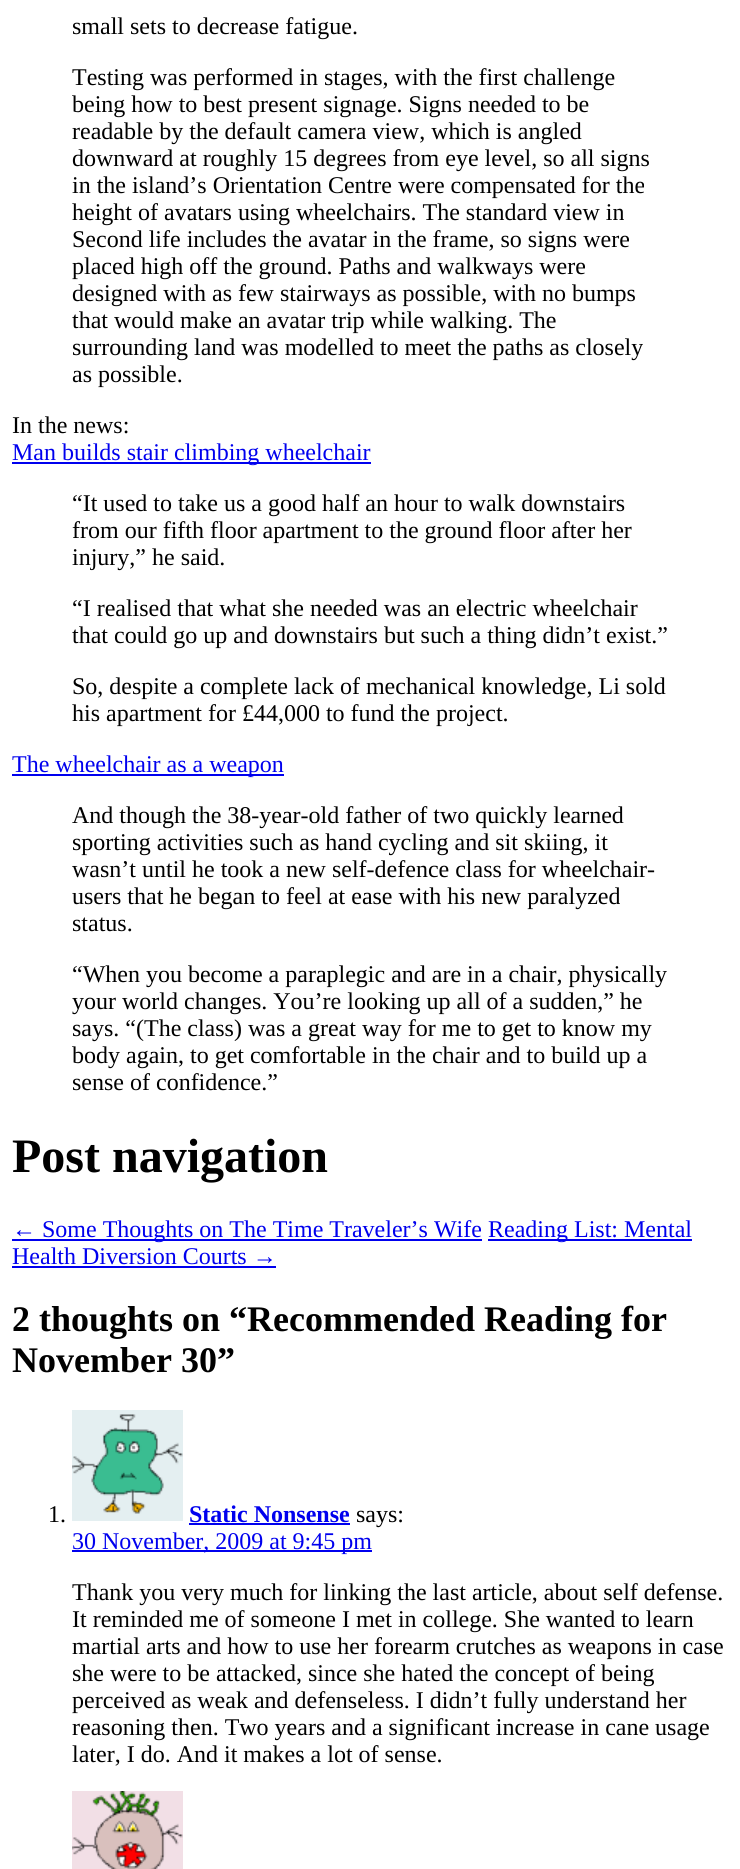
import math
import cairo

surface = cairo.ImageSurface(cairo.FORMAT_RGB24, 740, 1869)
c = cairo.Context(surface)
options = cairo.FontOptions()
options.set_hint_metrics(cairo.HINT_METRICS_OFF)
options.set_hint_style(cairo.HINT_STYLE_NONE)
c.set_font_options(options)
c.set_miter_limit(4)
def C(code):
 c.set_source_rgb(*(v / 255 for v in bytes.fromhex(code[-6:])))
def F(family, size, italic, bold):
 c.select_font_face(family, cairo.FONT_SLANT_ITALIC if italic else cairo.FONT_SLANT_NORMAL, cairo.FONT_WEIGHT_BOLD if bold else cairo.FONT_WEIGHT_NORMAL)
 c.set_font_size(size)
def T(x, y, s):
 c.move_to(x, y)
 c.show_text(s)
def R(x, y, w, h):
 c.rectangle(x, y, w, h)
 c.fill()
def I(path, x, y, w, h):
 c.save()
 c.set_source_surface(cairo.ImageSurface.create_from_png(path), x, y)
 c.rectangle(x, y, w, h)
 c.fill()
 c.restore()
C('ffffff')
c.paint()
F('Liberation Serif',24,0,0)
C('000000')
T(72,34,'small sets to decrease fatigue.')
T(72,85,'Testing was performed in stages, with the first challenge')
T(72,112,'being how to best present signage. Signs needed to be')
T(72,139,'readable by the default camera view, which is angled')
T(72,166,'downward at roughly 15 degrees from eye level, so all signs')
T(72,193,'in the island’s Orientation Centre were compensated for the')
T(72,220,'height of avatars using wheelchairs. The standard view in')
T(72,247,'Second life includes the avatar in the frame, so signs were')
T(72,274,'placed high off the ground. Paths and walkways were')
T(72,301,'designed with as few stairways as possible, with no bumps')
T(72,328,'that would make an avatar trip while walking. The')
T(72,355,'surrounding land was modelled to meet the paths as closely')
T(72,382,'as possible.')
T(12,433,'In the news:')
C('0000ee')
R(12,462,359,2)
T(12,460,'Man builds stair climbing wheelchair')
C('000000')
T(72,511,'“It used to take us a good half an hour to walk downstairs')
T(72,538,'from our fifth floor apartment to the ground floor after her')
T(72,565,'injury,” he said.')
T(72,616,'“I realised that what she needed was an electric wheelchair')
T(72,643,'that could go up and downstairs but such a thing didn’t exist.”')
T(72,694,'So, despite a complete lack of mechanical knowledge, Li sold')
T(72,721,'his apartment for £44,000 to fund the project.')
C('0000ee')
R(12,774,272,2)
T(12,772,'The wheelchair as a weapon')
C('000000')
T(72,823,'And though the 38-year-old father of two quickly learned')
T(72,850,'sporting activities such as hand cycling and sit skiing, it')
T(72,877,'wasn’t until he took a new self-defence class for wheelchair-')
T(72,904,'users that he began to feel at ease with his new paralyzed')
T(72,931,'status.')
T(72,982,'“When you become a paraplegic and are in a chair, physically')
T(72,1009,'your world changes. You’re looking up all of a sudden,” he')
T(72,1036,'says. “(The class) was a great way for me to get to know my')
T(72,1063,'body again, to get comfortable in the chair and to build up a')
T(72,1090,'sense of confidence.”')
F('Liberation Serif',48,0,1)
T(12,1172,'Post navigation')
C('0000ee')
R(12,1239,470,2)
F('Liberation Serif',24,0,0)
T(12,1237,'← Some Thoughts on The Time Traveler’s Wife')
R(488,1239,204,2)
T(488,1237,'Reading List: Mental')
T(12,1264,'Health Diversion Courts →')
R(12,1266,264,2)
F('Liberation Serif',36,0,1)
C('000000')
T(12,1331,'2 thoughts on “Recommended Reading for')
T(12,1372,'November 30”')
F('Liberation Serif',24,0,0)
T(48,1522,'1.')
I('1.png',72,1410,111,111)
F('Liberation Serif',24,0,1)
C('0000ee')
T(189,1522,'Static Nonsense')
R(189,1523,161,2)
F('Liberation Serif',24,0,0)
C('000000')
T(356,1522,'says:')
C('0000ee')
R(72,1550,300,2)
T(72,1549,'30 November, 2009 at 9:45 pm')
C('000000')
T(72,1600,'Thank you very much for linking the last article, about self defense.')
T(72,1627,'It reminded me of someone I met in college. She wanted to learn')
T(72,1654,'martial arts and how to use her forearm crutches as weapons in case')
T(72,1681,'she were to be attacked, since she hated the concept of being')
T(72,1708,'perceived as weak and defenseless. I didn’t fully understand her')
T(72,1735,'reasoning then. Two years and a significant increase in cane usage')
T(72,1762,'later, I do. And it makes a lot of sense.')
I('2.png',72,1791,111,78)
surface.write_to_png('o.png')
